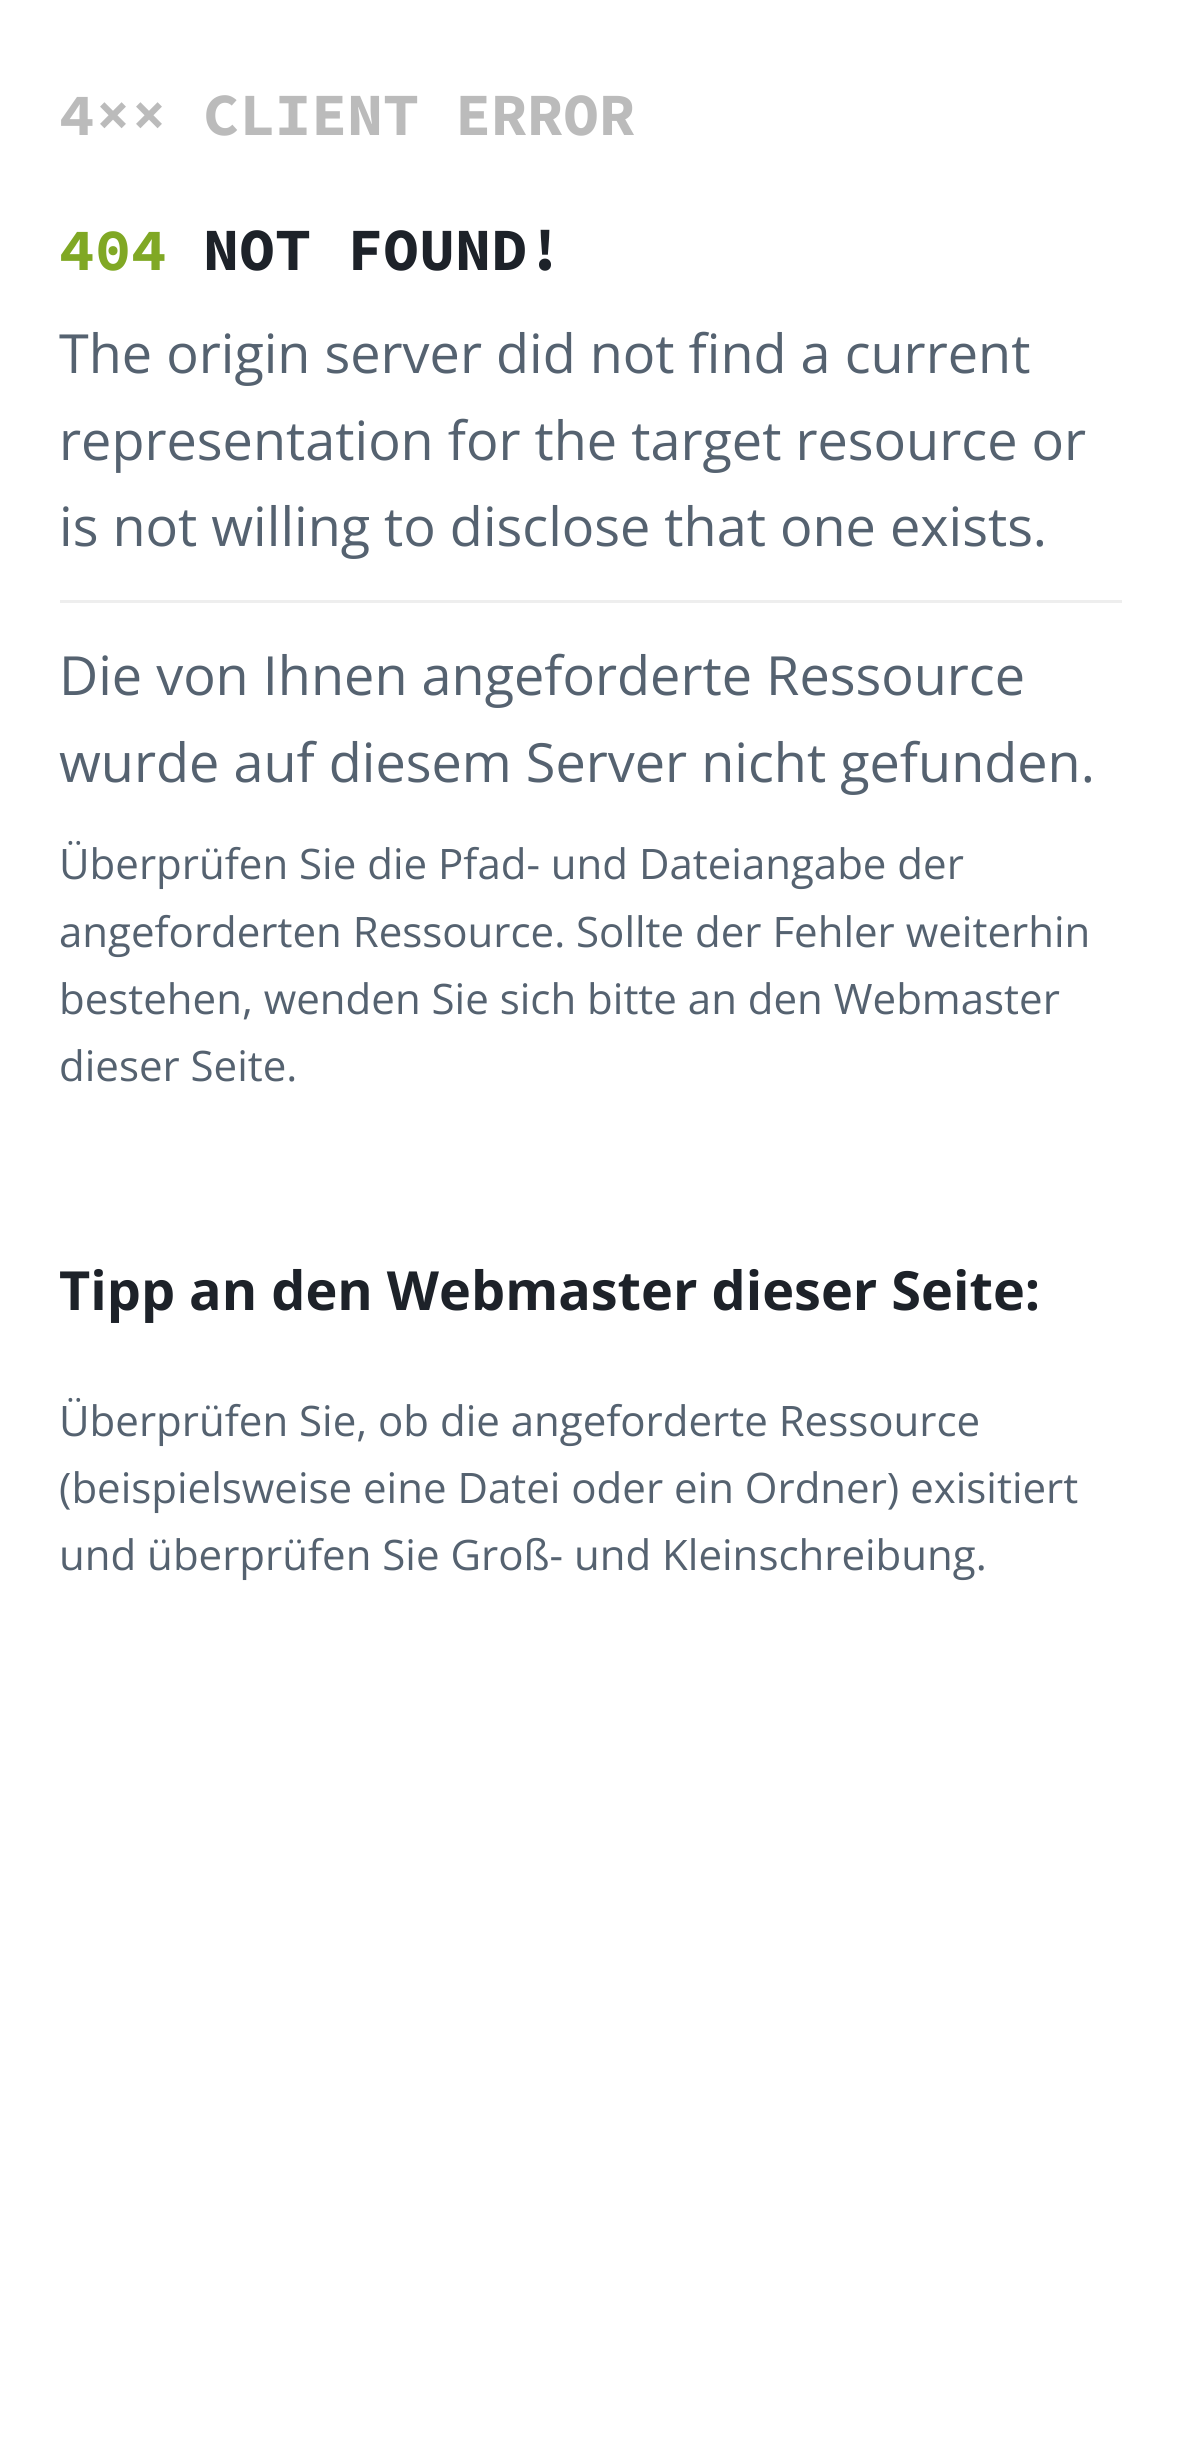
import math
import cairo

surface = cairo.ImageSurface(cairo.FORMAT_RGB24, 1180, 2455)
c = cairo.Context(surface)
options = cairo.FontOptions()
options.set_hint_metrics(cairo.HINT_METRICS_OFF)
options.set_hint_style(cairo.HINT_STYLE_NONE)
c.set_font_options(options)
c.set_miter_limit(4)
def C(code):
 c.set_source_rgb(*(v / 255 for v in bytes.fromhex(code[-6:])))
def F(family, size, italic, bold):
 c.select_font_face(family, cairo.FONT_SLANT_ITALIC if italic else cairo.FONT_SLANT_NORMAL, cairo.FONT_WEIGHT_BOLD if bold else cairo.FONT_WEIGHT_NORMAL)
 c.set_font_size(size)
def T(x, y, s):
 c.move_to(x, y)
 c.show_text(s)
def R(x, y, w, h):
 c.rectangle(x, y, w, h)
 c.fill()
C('ffffff')
c.paint()
F('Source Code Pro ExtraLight',60,0,1)
C('bbbbbb')
T(59,135,'4×× CLIENT ERROR')
C('80a824')
T(59,270,'404')
C('1d2229')
T(203,270,'NOT FOUND!')
F('Open Sans',54,0,0)
C('556270')
T(59,373,'The origin server did not find a current')
T(59,460,'representation for the target resource or')
T(59,546,'is not willing to disclose that one exists.')
C('eeeeee')
R(60,600,1062,3)
C('556270')
T(59,695,'Die von Ihnen angeforderte Ressource')
T(59,782,'wurde auf diesem Server nicht gefunden.')
F('Open Sans',42,0,0)
T(59,879,'Überprüfen Sie die Pfad- und Dateiangabe der')
T(59,947,'angeforderten Ressource. Sollte der Fehler weiterhin')
T(59,1014,'bestehen, wenden Sie sich bitte an den Webmaster')
T(59,1081,'dieser Seite.')
F('Open Sans',54,0,1)
C('1d2229')
T(59,1310,'Tipp an den Webmaster dieser Seite:')
F('Open Sans',42,0,0)
C('556270')
T(59,1436,'Überprüfen Sie, ob die angeforderte Ressource')
T(59,1503,'(beispielsweise eine Datei oder ein Ordner) exisitiert')
T(59,1570,'und überprüfen Sie Groß- und Kleinschreibung.')
surface.write_to_png('o.png')
